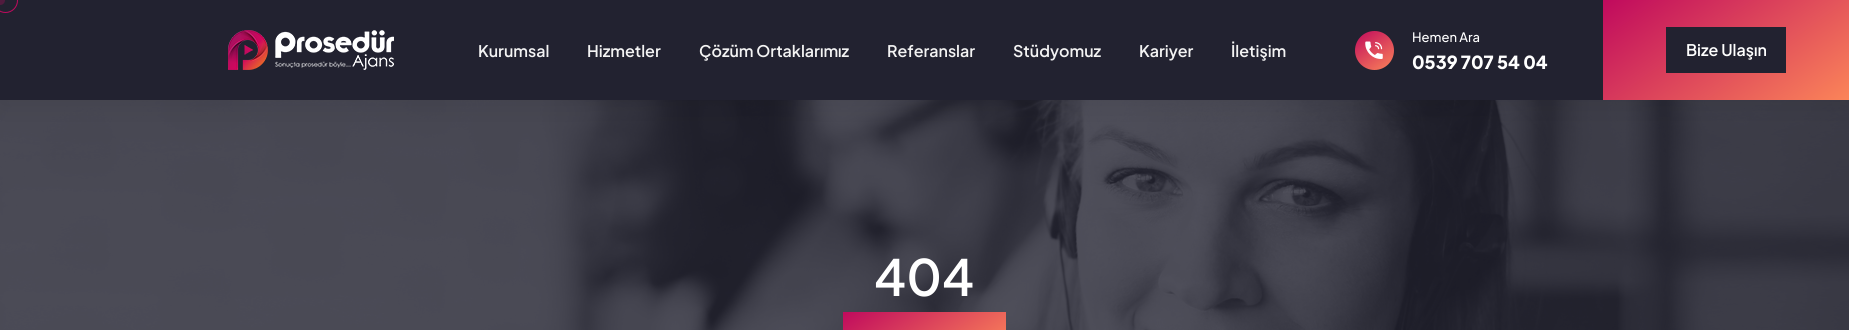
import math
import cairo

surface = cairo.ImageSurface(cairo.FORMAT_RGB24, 1849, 330)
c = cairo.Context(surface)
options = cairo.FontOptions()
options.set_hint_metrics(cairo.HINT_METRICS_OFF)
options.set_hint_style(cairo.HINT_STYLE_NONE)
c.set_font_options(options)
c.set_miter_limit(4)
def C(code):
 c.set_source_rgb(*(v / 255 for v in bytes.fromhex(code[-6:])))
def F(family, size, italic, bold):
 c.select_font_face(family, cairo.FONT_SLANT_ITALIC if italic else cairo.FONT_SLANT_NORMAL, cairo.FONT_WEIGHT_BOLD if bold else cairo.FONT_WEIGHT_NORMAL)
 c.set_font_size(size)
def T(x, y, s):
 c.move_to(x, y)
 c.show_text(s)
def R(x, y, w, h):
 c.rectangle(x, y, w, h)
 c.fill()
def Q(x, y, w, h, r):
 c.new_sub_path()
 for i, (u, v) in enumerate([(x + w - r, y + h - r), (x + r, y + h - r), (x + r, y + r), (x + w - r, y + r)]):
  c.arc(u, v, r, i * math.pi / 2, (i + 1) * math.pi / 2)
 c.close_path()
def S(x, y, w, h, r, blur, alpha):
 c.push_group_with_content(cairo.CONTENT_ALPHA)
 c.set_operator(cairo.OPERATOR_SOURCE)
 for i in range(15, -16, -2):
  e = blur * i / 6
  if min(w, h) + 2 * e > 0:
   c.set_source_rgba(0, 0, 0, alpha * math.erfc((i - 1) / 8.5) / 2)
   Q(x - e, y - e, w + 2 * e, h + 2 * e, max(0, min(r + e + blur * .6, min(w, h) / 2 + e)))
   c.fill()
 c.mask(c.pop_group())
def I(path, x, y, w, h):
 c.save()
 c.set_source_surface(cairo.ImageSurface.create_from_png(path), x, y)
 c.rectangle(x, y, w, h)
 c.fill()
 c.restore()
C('ffffff')
c.paint()
I('3.png',0,100,1849,230)
C('000000')
S(0,4,1849,100,0,15,.08)
C('222230')
R(0,0,1603,100)
c.arc(5.5,.5,12,0,2 * math.pi)
C('c00a5d')
c.set_line_width(1)
c.stroke()
C('511b3e')
c.arc(0,0,5,0,2 * math.pi)
c.fill()
I('1.png',228,30,166,40)
F('Plus Jakarta Sans SemiBold',16,0,0)
C('f3f3f3')
T(478,57,'Kurumsal')
T(587,57,'Hizmetler')
T(699,57,'Çözüm Ortaklarımız')
T(887,57,'Referanslar')
T(1013,57,'Stüdyomuz')
T(1139,57,'Kariyer')
T(1231,57,'İletişim')
gradient = cairo.LinearGradient(1359,28,1390,73)
gradient.add_color_stop_rgba(0,0.753,0.039,0.365,1)
gradient.add_color_stop_rgba(1,0.984,0.518,0.349,1)
c.set_source(gradient)
c.new_path()
c.arc(1374.5,50.5,19.5,0,2 * math.pi)
c.fill()
I('2.png',1365,41,18,18)
F('Plus Jakarta Sans Medium',13,0,0)
C('ffffff')
T(1412,42,'Hemen Ara')
F('Plus Jakarta Sans ExtraBold',18,0,0)
T(1412,69,'0539 707 54 04')
gradient = cairo.LinearGradient(1662,-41,1790,141)
gradient.add_color_stop_rgba(0,0.753,0.039,0.365,1)
gradient.add_color_stop_rgba(1,0.984,0.518,0.349,1)
c.set_source(gradient)
R(1603,0,246,100)
C('222230')
R(1666,27,120,46)
F('Plus Jakarta Sans SemiBold',16,0,0)
C('ffffff')
T(1686,56,'Bize Ulaşın')
F('Plus Jakarta Sans SemiBold',50,0,0)
T(874,296,'404')
gradient = cairo.LinearGradient(889,280,960,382)
gradient.add_color_stop_rgba(0,0.753,0.039,0.365,1)
gradient.add_color_stop_rgba(1,0.984,0.518,0.349,1)
c.set_source(gradient)
R(843,312,163,18)
surface.write_to_png('o.png')
